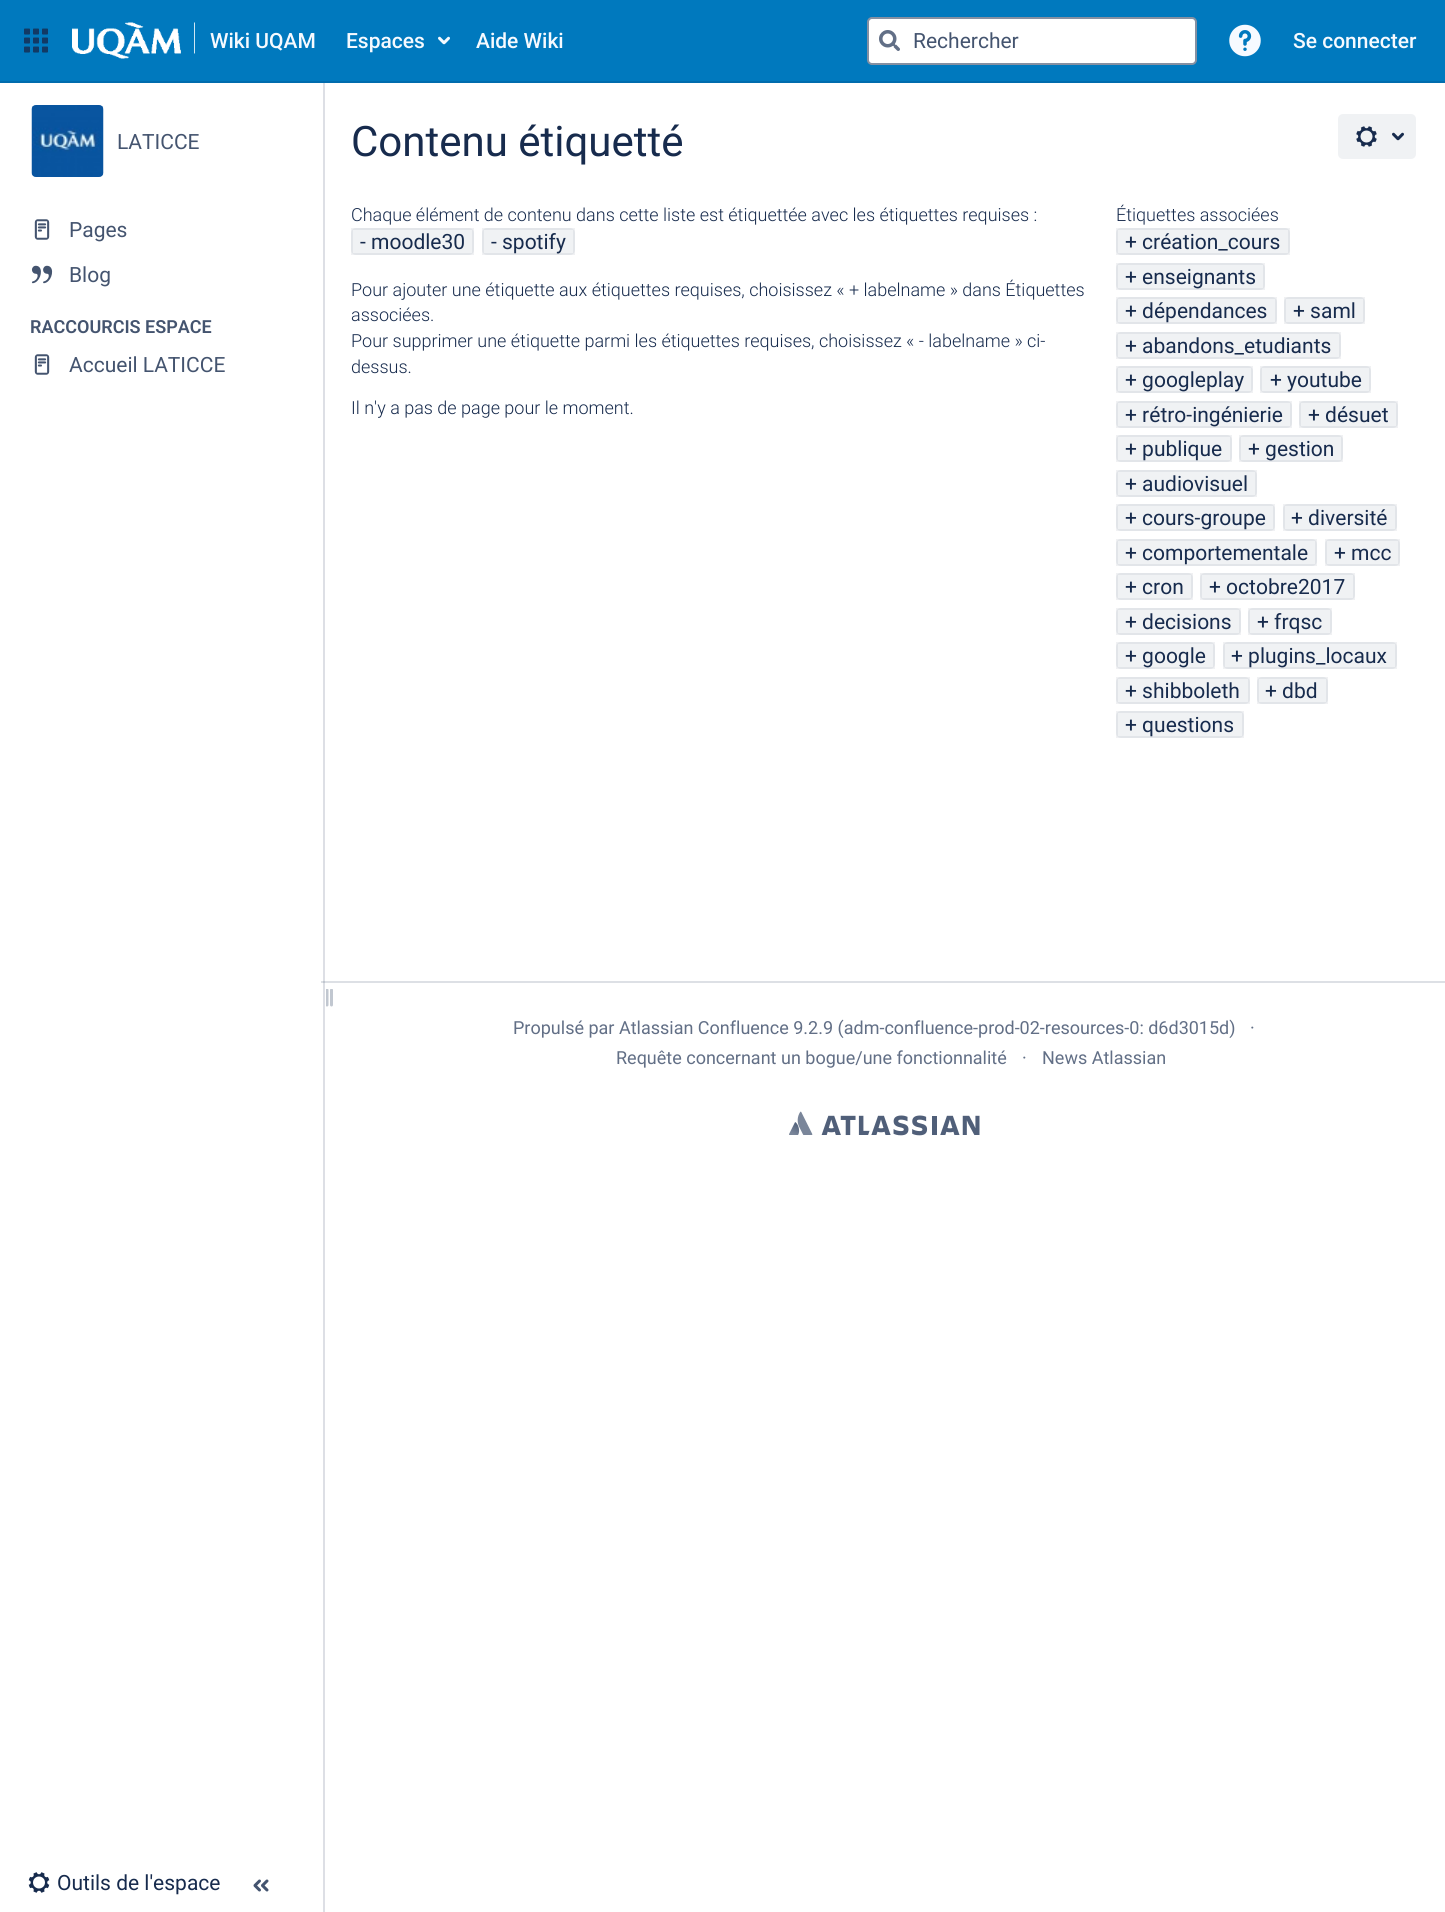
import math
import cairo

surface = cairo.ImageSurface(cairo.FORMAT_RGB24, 1445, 1912)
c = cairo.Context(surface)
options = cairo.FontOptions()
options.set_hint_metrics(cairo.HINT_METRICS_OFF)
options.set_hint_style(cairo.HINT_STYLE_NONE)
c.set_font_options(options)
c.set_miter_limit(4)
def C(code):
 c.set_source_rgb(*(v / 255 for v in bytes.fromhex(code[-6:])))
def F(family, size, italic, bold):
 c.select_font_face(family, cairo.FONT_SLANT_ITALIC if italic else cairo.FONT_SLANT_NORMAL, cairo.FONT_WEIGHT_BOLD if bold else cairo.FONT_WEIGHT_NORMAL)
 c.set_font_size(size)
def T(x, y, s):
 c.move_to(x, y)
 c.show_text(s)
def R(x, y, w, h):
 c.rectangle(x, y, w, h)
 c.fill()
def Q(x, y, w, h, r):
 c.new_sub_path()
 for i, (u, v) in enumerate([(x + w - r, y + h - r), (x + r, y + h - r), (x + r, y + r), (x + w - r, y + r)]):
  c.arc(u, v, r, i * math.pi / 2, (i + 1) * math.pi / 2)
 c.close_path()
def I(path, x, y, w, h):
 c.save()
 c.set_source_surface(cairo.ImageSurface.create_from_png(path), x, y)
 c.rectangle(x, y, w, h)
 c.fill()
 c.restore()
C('ffffff')
c.paint()
C('dddfe5')
R(323,83,2,1829)
C('0079be')
R(0,0,1445,81)
C('016cad')
R(0,81,1445,2)
I('1.png',24,28,24,25)
I('2.png',72,22,123,37)
F('Roboto Medium',21,0,0)
C('f6faff')
T(210,48,'Wiki UQAM')
T(346,48,'Espaces')
I('3.png',438,36,12,9)
T(476,48,'Aide Wiki')
C('ffffff')
Q(868,18,328,46,4)
c.fill_preserve()
C('8590a2')
c.stroke()
I('4.png',879,30,21,21)
F('Roboto',21,0,0)
C('44546f')
T(913,48,'Rechercher')
I('5.png',1229,24,32,33)
F('Roboto Medium',21,0,0)
C('f6faff')
T(1293,48,'Se connecter')
I('6.png',31,105,73,72)
F('Roboto',21,0,0)
C('44546f')
T(117,149,'LATICCE')
I('7.png',34,219,16,21)
T(69,237,'Pages')
I('8.png',31,265,22,19)
T(69,282,'Blog')
F('Roboto SemiBold',18,0,0)
T(30,333,'RACCOURCIS ESPACE')
I('7.png',34,354,16,21)
F('Roboto',21,0,0)
T(69,372,'Accueil LATICCE')
I('9.png',326,989,7,18)
I('10.png',28,1872,22,21)
C('172b4d')
T(57,1890,'Outils de l\'espace')
I('11.png',253,1879,16,13)
C('dde0e5')
R(321,981,1124,2)
C('bfc5ce')
R(323,981,2,2)
F('Roboto',42,0,0)
C('172b4d')
T(351,156,'Contenu étiquetté')
C('f0f2f4')
Q(1338,114,78,45,5)
c.fill()
I('12.png',1356,126,21,21)
I('13.png',1392,132,12,9)
F('Roboto Light',18,0,0)
C('172b4d')
T(351,221,'Chaque élément de contenu dans cette liste est étiquettée avec les étiquettes requises :')
C('f0f2f4')
Q(351,228,123,27,5)
c.fill()
c.rectangle(352,229,121,25)
c.set_source_rgba(0.035,0.118,0.259,0.06)
c.stroke()
F('Roboto',21,0,0)
C('172b4d')
T(360,249,'- moodle30')
C('f0f2f4')
Q(482,228,93,27,5)
c.fill()
c.rectangle(483,229,91,25)
c.set_source_rgba(0.035,0.118,0.259,0.06)
c.stroke()
C('172b4d')
T(491,249,'- spotify')
F('Roboto Light',18,0,0)
T(351,296,'Pour ajouter une étiquette aux étiquettes requises, choisissez « + labelname » dans Étiquettes')
T(351,321,'associées.')
T(351,347,'Pour supprimer une étiquette parmi les étiquettes requises, choisissez « - labelname » ci-')
T(351,373,'dessus.')
T(351,414,'Il n\'y a pas de page pour le moment.')
T(1116,221,'Étiquettes associées')
C('f0f2f4')
Q(1116,228,174,27,5)
c.fill()
c.rectangle(1117,229,172,25)
c.set_source_rgba(0.035,0.118,0.259,0.06)
c.stroke()
F('Roboto',21,0,0)
C('172b4d')
T(1125,249,'+ création_cours')
C('f0f2f4')
Q(1116,263,149,27,5)
c.fill()
c.rectangle(1117,264,147,25)
c.set_source_rgba(0.035,0.118,0.259,0.06)
c.stroke()
C('172b4d')
T(1125,284,'+ enseignants')
C('f0f2f4')
Q(1116,297,161,27,5)
c.fill()
c.rectangle(1117,298,159,25)
c.set_source_rgba(0.035,0.118,0.259,0.06)
c.stroke()
C('172b4d')
T(1125,318,'+ dépendances')
C('f0f2f4')
Q(1284,297,81,27,5)
c.fill()
c.rectangle(1285,298,79,25)
c.set_source_rgba(0.035,0.118,0.259,0.06)
c.stroke()
C('172b4d')
T(1293,318,'+ saml')
C('f0f2f4')
Q(1116,332,225,27,5)
c.fill()
c.rectangle(1117,333,223,25)
c.set_source_rgba(0.035,0.118,0.259,0.06)
c.stroke()
C('172b4d')
T(1125,353,'+ abandons_etudiants')
C('f0f2f4')
Q(1116,366,137,27,5)
c.fill()
c.rectangle(1117,367,135,25)
c.set_source_rgba(0.035,0.118,0.259,0.06)
c.stroke()
C('172b4d')
T(1125,387,'+ googleplay')
C('f0f2f4')
Q(1260,366,111,27,5)
c.fill()
c.rectangle(1261,367,109,25)
c.set_source_rgba(0.035,0.118,0.259,0.06)
c.stroke()
C('172b4d')
T(1270,387,'+ youtube')
C('f0f2f4')
Q(1116,401,176,27,5)
c.fill()
c.rectangle(1117,402,174,25)
c.set_source_rgba(0.035,0.118,0.259,0.06)
c.stroke()
C('172b4d')
T(1125,422,'+ rétro-ingénierie')
C('f0f2f4')
Q(1299,401,99,27,5)
c.fill()
c.rectangle(1300,402,97,25)
c.set_source_rgba(0.035,0.118,0.259,0.06)
c.stroke()
C('172b4d')
T(1308,422,'+ désuet')
C('f0f2f4')
Q(1116,435,116,27,5)
c.fill()
c.rectangle(1117,436,114,25)
c.set_source_rgba(0.035,0.118,0.259,0.06)
c.stroke()
C('172b4d')
T(1125,456,'+ publique')
C('f0f2f4')
Q(1239,435,104,27,5)
c.fill()
c.rectangle(1240,436,102,25)
c.set_source_rgba(0.035,0.118,0.259,0.06)
c.stroke()
C('172b4d')
T(1248,456,'+ gestion')
C('f0f2f4')
Q(1116,470,141,27,5)
c.fill()
c.rectangle(1117,471,139,25)
c.set_source_rgba(0.035,0.118,0.259,0.06)
c.stroke()
C('172b4d')
T(1125,491,'+ audiovisuel')
C('f0f2f4')
Q(1116,504,159,27,5)
c.fill()
c.rectangle(1117,505,157,25)
c.set_source_rgba(0.035,0.118,0.259,0.06)
c.stroke()
C('172b4d')
T(1125,525,'+ cours-groupe')
C('f0f2f4')
Q(1283,504,114,27,5)
c.fill()
c.rectangle(1284,505,112,25)
c.set_source_rgba(0.035,0.118,0.259,0.06)
c.stroke()
C('172b4d')
T(1291,525,'+ diversité')
C('f0f2f4')
Q(1116,539,201,27,5)
c.fill()
c.rectangle(1117,540,199,25)
c.set_source_rgba(0.035,0.118,0.259,0.06)
c.stroke()
C('172b4d')
T(1125,560,'+ comportementale')
C('f0f2f4')
Q(1325,539,75,27,5)
c.fill()
c.rectangle(1326,540,73,25)
c.set_source_rgba(0.035,0.118,0.259,0.06)
c.stroke()
C('172b4d')
T(1334,560,'+ mcc')
C('f0f2f4')
Q(1116,573,77,27,5)
c.fill()
c.rectangle(1117,574,75,25)
c.set_source_rgba(0.035,0.118,0.259,0.06)
c.stroke()
C('172b4d')
T(1125,594,'+ cron')
C('f0f2f4')
Q(1200,573,155,27,5)
c.fill()
c.rectangle(1201,574,153,25)
c.set_source_rgba(0.035,0.118,0.259,0.06)
c.stroke()
C('172b4d')
T(1209,594,'+ octobre2017')
C('f0f2f4')
Q(1116,608,125,27,5)
c.fill()
c.rectangle(1117,609,123,25)
c.set_source_rgba(0.035,0.118,0.259,0.06)
c.stroke()
C('172b4d')
T(1125,629,'+ decisions')
C('f0f2f4')
Q(1248,608,84,27,5)
c.fill()
c.rectangle(1249,609,82,25)
c.set_source_rgba(0.035,0.118,0.259,0.06)
c.stroke()
C('172b4d')
T(1257,629,'+ frqsc')
C('f0f2f4')
Q(1116,642,99,27,5)
c.fill()
c.rectangle(1117,643,97,25)
c.set_source_rgba(0.035,0.118,0.259,0.06)
c.stroke()
C('172b4d')
T(1125,663,'+ google')
C('f0f2f4')
Q(1223,642,174,27,5)
c.fill()
c.rectangle(1224,643,172,25)
c.set_source_rgba(0.035,0.118,0.259,0.06)
c.stroke()
C('172b4d')
T(1231,663,'+ plugins_locaux')
C('f0f2f4')
Q(1116,677,134,27,5)
c.fill()
c.rectangle(1117,678,132,25)
c.set_source_rgba(0.035,0.118,0.259,0.06)
c.stroke()
C('172b4d')
T(1125,698,'+ shibboleth')
C('f0f2f4')
Q(1257,677,71,27,5)
c.fill()
c.rectangle(1258,678,69,25)
c.set_source_rgba(0.035,0.118,0.259,0.06)
c.stroke()
C('172b4d')
T(1265,698,'+ dbd')
C('f0f2f4')
Q(1116,711,128,27,5)
c.fill()
c.rectangle(1117,712,126,25)
c.set_source_rgba(0.035,0.118,0.259,0.06)
c.stroke()
C('172b4d')
T(1125,732,'+ questions')
F('Roboto',18,0,0)
C('626f86')
T(513,1034,'Propulsé par Atlassian Confluence 9.2.9 (adm-confluence-prod-02-resources-0: d6d3015d)')
T(1250,1034,'·')
T(616,1064,'Requête concernant un bogue/une fonctionnalité')
T(1022,1064,'·')
T(1042,1064,'News Atlassian')
I('14.png',789,1111,191,25)
surface.write_to_png('o.png')
